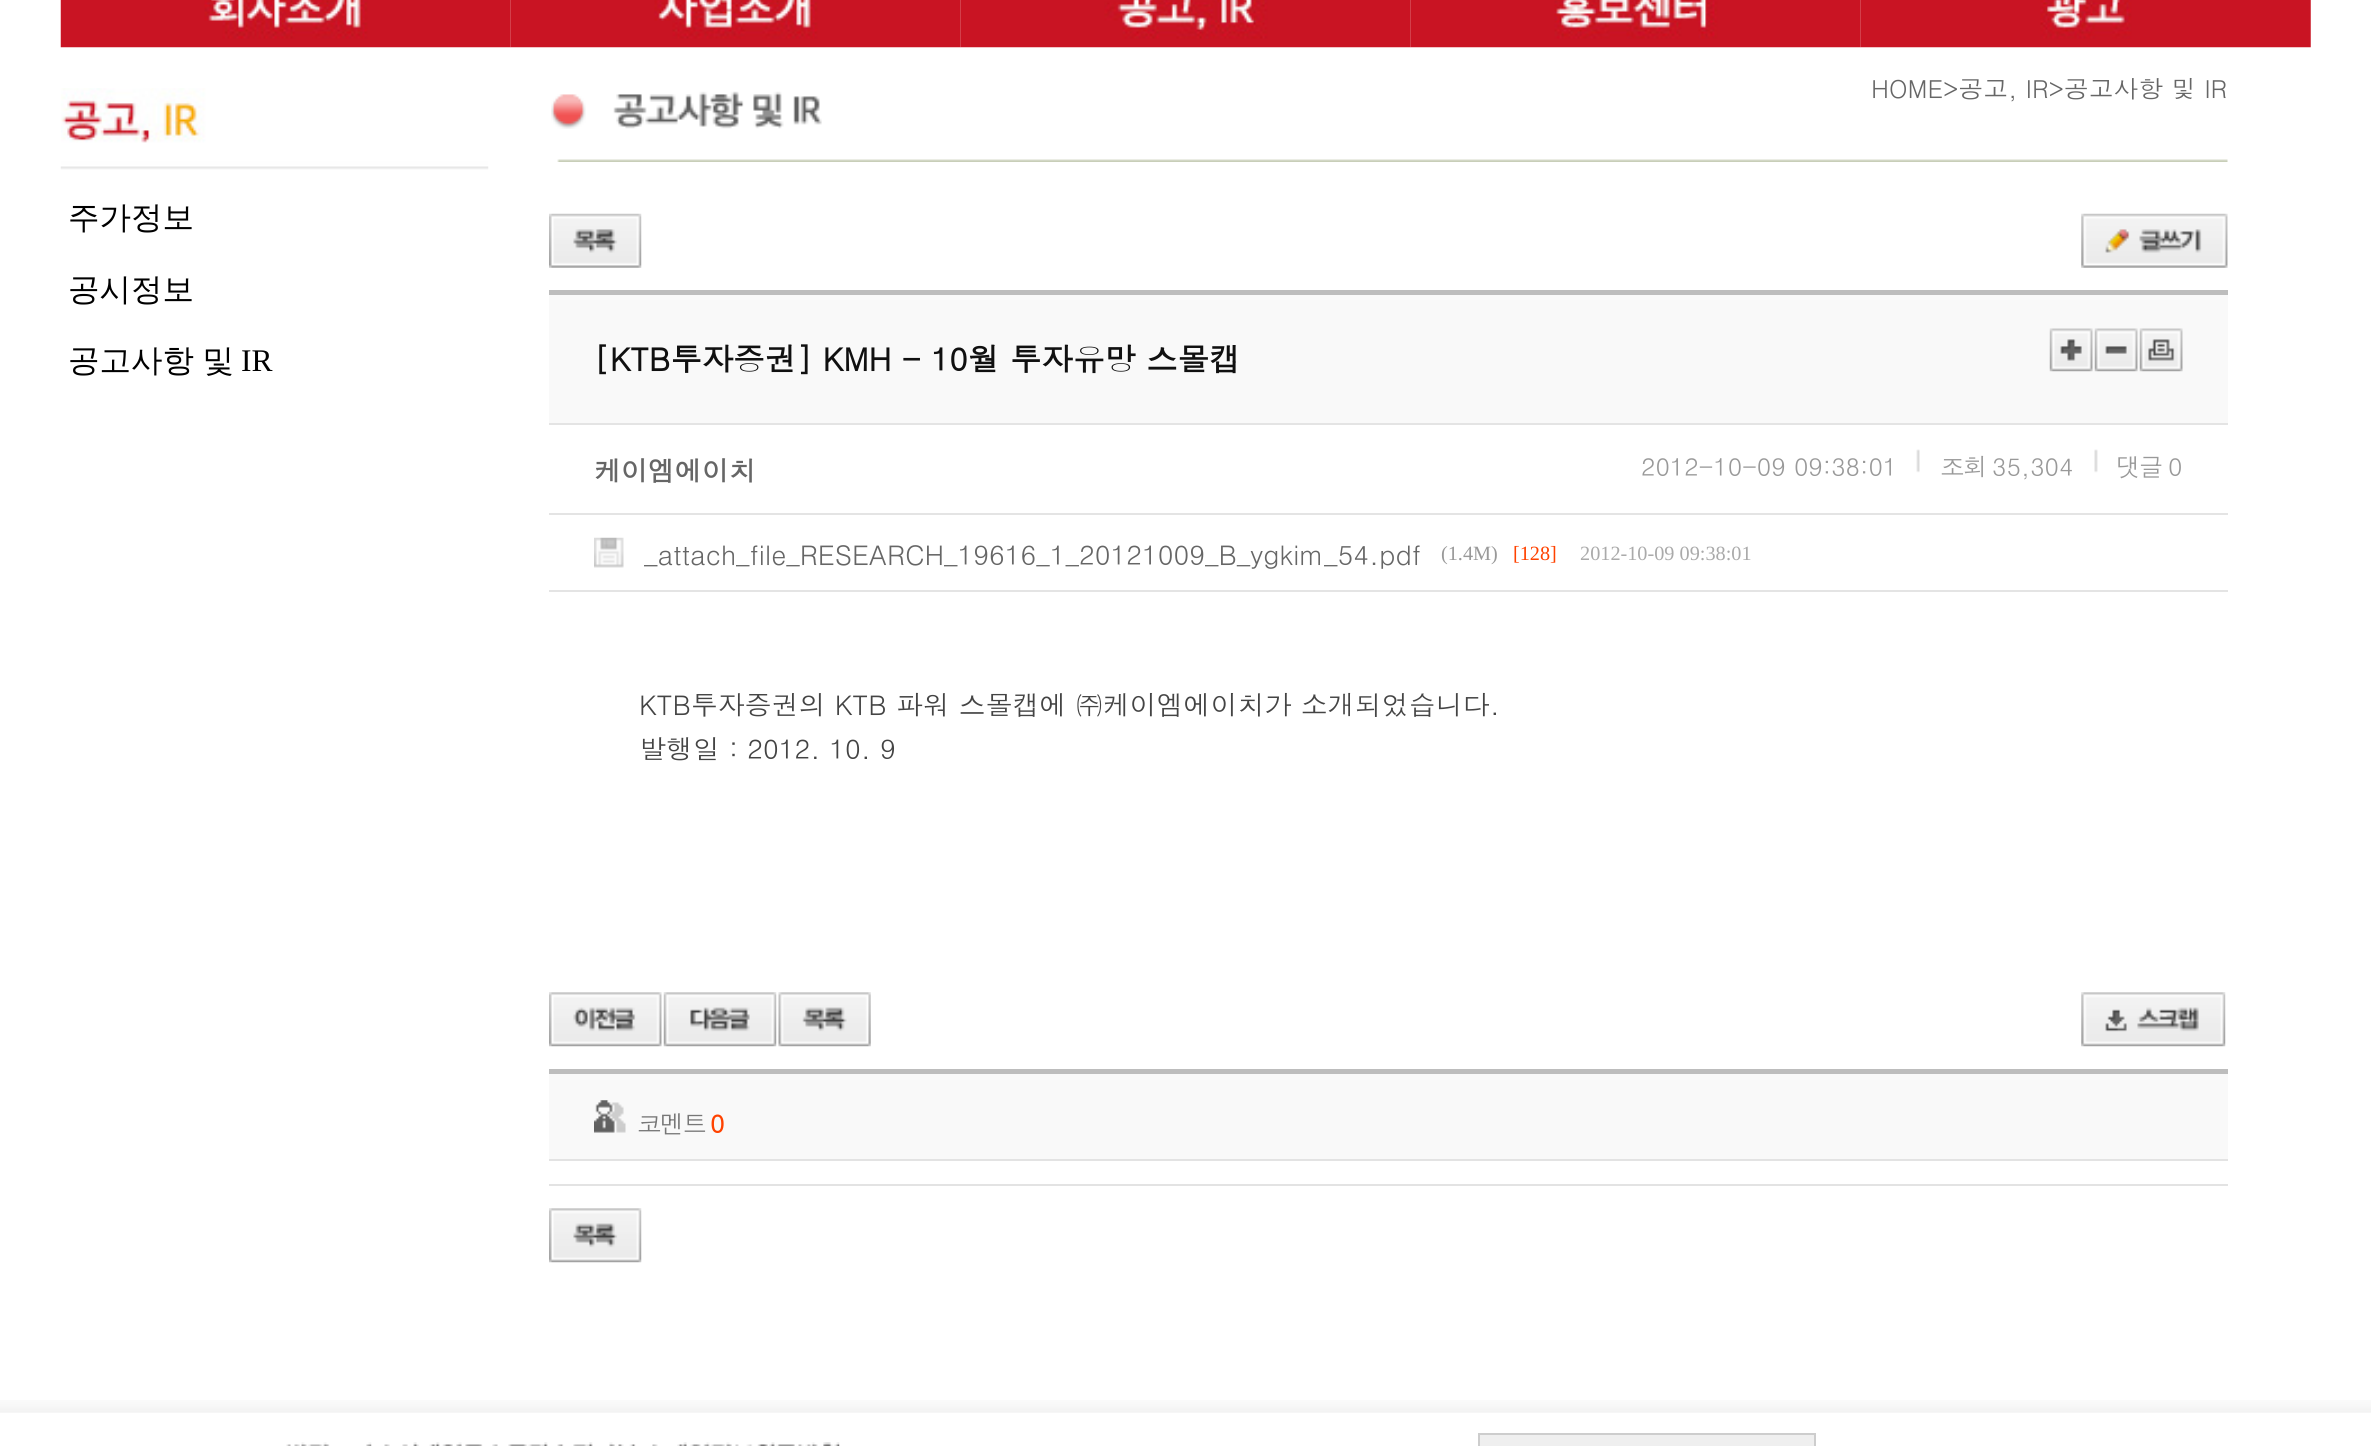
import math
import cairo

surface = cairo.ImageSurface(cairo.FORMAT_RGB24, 2371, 1446)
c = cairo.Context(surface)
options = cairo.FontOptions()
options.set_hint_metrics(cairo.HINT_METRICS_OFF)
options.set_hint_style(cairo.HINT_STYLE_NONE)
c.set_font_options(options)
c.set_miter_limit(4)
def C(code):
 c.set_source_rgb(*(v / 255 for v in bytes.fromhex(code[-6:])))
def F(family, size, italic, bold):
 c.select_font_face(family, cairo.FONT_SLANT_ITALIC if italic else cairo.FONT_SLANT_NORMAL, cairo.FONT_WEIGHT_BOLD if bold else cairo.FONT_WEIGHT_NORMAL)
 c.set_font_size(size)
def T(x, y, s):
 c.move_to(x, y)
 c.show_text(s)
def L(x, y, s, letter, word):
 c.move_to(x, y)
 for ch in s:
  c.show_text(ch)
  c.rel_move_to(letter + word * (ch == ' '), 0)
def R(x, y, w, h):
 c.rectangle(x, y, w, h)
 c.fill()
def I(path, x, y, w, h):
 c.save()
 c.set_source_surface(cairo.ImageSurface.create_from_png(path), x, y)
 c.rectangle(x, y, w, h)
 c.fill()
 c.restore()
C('ffffff')
c.paint()
I('1.png',60,0,451,48)
I('2.png',510,0,451,48)
I('3.png',960,0,451,48)
I('4.png',1410,0,451,48)
I('5.png',1860,0,451,48)
I('6.png',60,88,429,82)
F('WenQuanYi Zen Hei Medium',31.5,0,0)
C('000000')
T(68,228,'주가정보')
T(68,300,'공시정보')
L(68,371,'공고사항 및',0,-1)
F('Liberation Serif',31.5,0,0)
T(241,371,'IR')
F('Dotum',24.75,0,0)
C('666666')
T(1871,98,'HOME>공고, IR>공고사항 및 IR')
I('7.png',551,94,1677,68)
I('8.png',613,91,209,38)
I('9.png',549,213,93,55)
I('10.png',2081,213,147,55)
C('bdbdbd')
R(549,290,1679,5)
C('e4e4e4')
R(549,513,1679,2)
C('f9f9f9')
R(549,295,1679,128)
C('e4e4e4')
R(549,423,1679,2)
F('Dotum',31.5,0,1)
C('101010')
T(594,371,'[KTB투자증권] KMH - 10월 투자유망 스몰캡')
I('11.png',2049,328,44,44)
I('12.png',2094,328,44,44)
I('13.png',2139,328,44,44)
F('Dotum',27,0,1)
C('666666')
T(594,481,'케이엠에이치')
F('Dotum',24.75,0,0)
C('999999')
T(1641,476,'2012-10-09 09:38:01')
I('14.png',1916,449,4,24)
L(1940,476,'조회',-2,0)
T(1992,476,'35,304')
I('15.png',2094,449,4,24)
L(2116,476,'댓글',-2,0)
T(2168,476,'0')
C('e4e4e4')
R(549,590,1679,2)
I('16.png',594,537,30,31)
F('Dotum',27,0,0)
C('666666')
T(644,565,'_attach_file_RESEARCH_19616_1_20121009_B_ygkim_54.pdf')
F('Liberation Serif',20.25,0,0)
C('999999')
T(1441,560,'(1.4M)')
C('ff4200')
T(1513,560,'[128]')
C('aaaaaa')
T(1580,560,'2012-10-09 09:38:01')
F('Dotum',27,0,0)
C('444444')
T(639,715,'KTB투자증권의 KTB 파워 스몰캡에 ㈜케이엠에이치가 소개되었습니다.')
T(639,759,'발행일 : 2012. 10. 9')
I('17.png',549,992,113,55)
I('18.png',663,992,114,55)
I('19.png',778,992,93,55)
I('20.png',2081,992,145,55)
C('f9f9f9')
R(549,1074,1679,85)
C('bdbdbd')
R(549,1069,1679,5)
C('e3e3e3')
R(549,1159,1679,2)
I('21.png',594,1100,32,33)
F('Dotum',24.75,0,0)
C('777777')
L(637,1133,'코멘트',-2,0)
F('Dotum',24.75,0,1)
C('ff4200')
L(710,1133,'0',-2,0)
C('e3e3e3')
R(549,1184,1679,2)
I('22.png',549,1208,93,55)
I('23.png',0,1400,2371,13)
I('24.png',286,1442,86,4)
I('25.png',384,1444,6,2)
I('26.png',402,1442,234,4)
I('27.png',652,1444,6,2)
I('28.png',677,1442,163,4)
C('efefef')
c.rectangle(1479,1434,336,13)
c.fill_preserve()
C('cdcdcd')
c.stroke()
surface.write_to_png('o.png')
